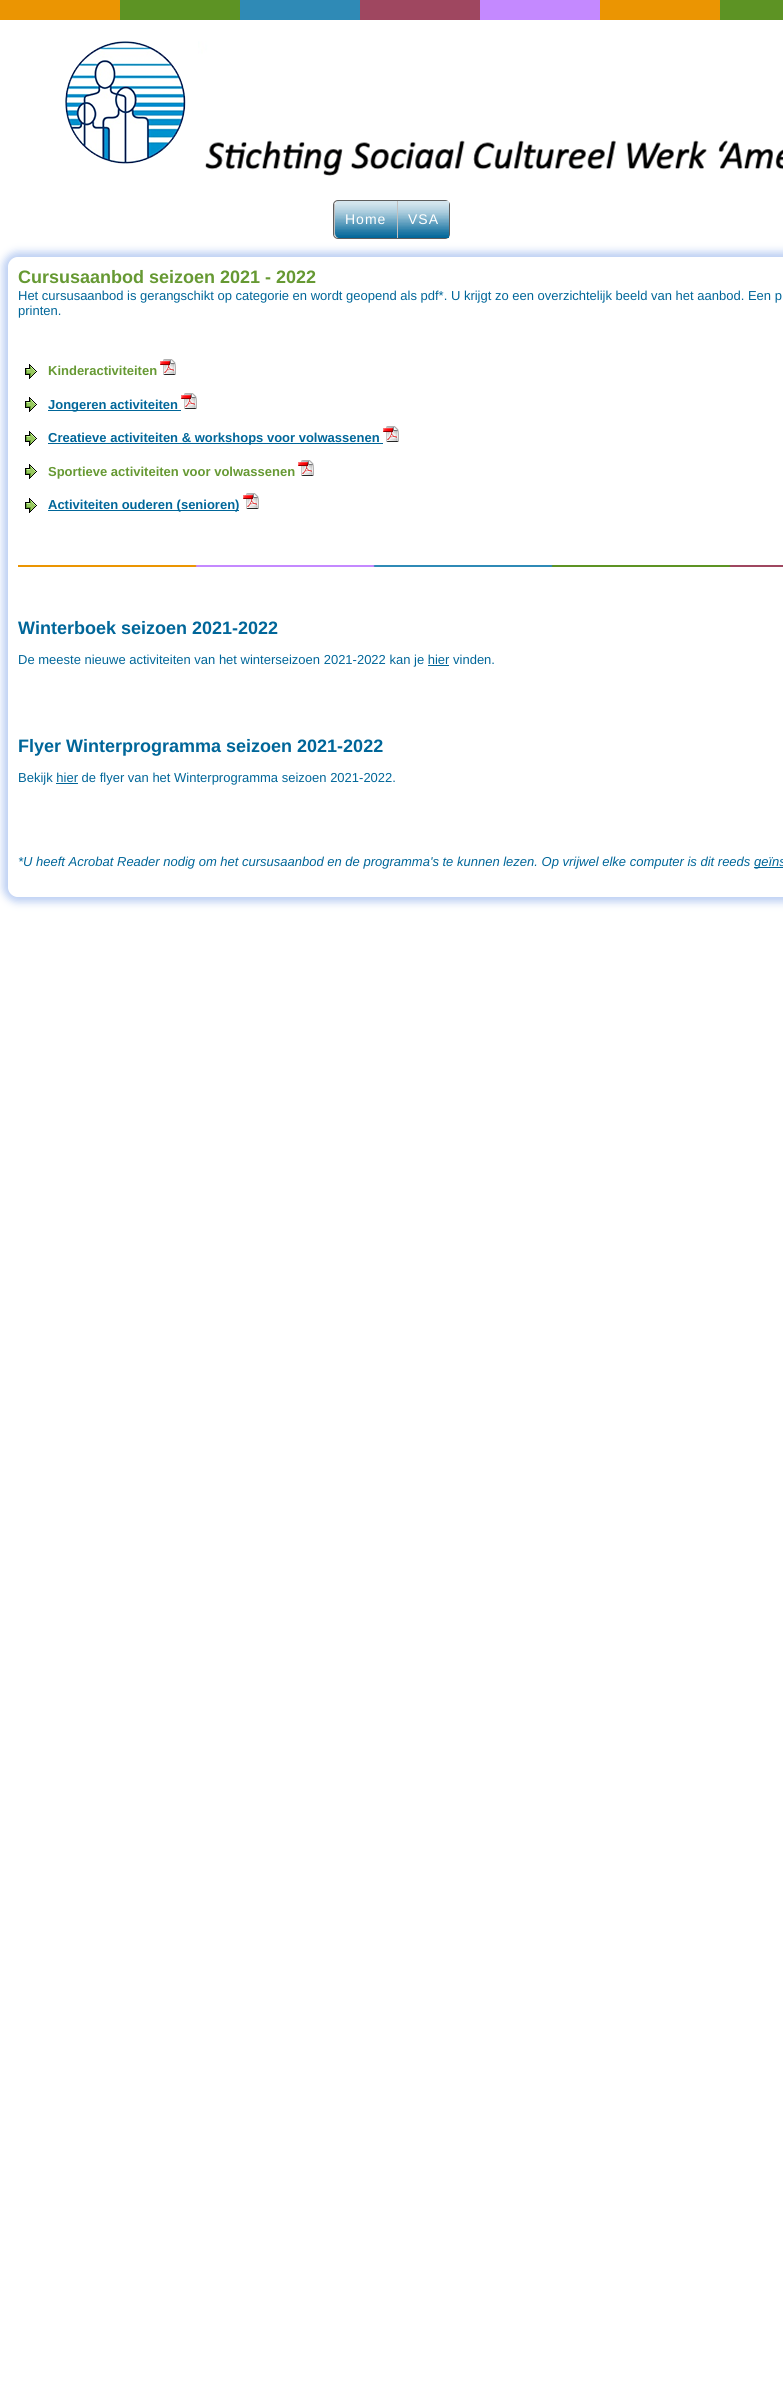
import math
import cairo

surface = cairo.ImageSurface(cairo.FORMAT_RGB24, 783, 2395)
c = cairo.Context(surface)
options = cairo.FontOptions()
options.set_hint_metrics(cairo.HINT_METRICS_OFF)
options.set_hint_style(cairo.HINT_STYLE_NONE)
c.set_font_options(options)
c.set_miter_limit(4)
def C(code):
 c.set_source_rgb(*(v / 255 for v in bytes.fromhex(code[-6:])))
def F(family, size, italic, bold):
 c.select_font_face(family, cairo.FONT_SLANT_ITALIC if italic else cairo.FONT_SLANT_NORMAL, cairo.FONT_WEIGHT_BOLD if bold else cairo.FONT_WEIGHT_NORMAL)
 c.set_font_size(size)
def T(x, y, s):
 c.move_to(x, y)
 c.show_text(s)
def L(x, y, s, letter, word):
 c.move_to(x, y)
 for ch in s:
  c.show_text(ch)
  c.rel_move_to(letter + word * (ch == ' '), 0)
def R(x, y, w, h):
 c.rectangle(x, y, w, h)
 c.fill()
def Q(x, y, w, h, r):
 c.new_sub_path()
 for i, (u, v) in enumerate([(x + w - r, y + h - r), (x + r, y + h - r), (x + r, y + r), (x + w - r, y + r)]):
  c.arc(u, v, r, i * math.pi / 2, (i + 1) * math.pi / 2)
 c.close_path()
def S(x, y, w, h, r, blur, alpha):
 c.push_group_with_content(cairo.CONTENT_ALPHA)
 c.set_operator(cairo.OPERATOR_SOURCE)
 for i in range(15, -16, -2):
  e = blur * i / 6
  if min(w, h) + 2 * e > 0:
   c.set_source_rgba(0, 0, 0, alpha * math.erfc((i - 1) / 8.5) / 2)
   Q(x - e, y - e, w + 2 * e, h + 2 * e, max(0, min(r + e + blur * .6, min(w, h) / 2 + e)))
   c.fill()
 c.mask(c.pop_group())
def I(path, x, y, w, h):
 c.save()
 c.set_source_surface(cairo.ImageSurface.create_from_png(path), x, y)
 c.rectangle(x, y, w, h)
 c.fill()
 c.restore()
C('ffffff')
c.paint()
I('1.png',0,0,783,20)
I('2.png',65,41,718,135)
C('dedede')
Q(333.5,200.5,116,38,4.5)
c.fill_preserve()
C('5f5f5f')
c.set_line_width(1)
c.stroke()
C('006699')
c.new_path()
c.move_to(339,201)
c.line_to(397,201)
c.line_to(397,238)
c.line_to(339,238)
c.curve_to(337,238,335,236,335,233)
c.line_to(335,206)
c.curve_to(335,203,337,201,339,201)
c.close_path()
c.fill()
I('3.png',334,201,63,36)
C('c0c0c0')
R(334,204,1,32)
F('Liberation Sans',14,0,0)
C('ffffff')
L(345,224,'Home',1,0)
C('006699')
R(398,201,51,37)
I('4.png',398,201,51,36)
C('c0c0c0')
R(397,201,1,37)
C('ffffff')
L(408,224,'VSA',1,0)
c.save()
c.set_fill_rule(cairo.FILL_RULE_EVEN_ODD)
c.new_path()
c.move_to(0,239)
c.line_to(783,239)
c.line_to(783,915)
c.line_to(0,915)
c.close_path()
c.move_to(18,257)
c.line_to(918,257)
c.curve_to(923.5,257,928,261.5,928,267)
c.line_to(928,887)
c.curve_to(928,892.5,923.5,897,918,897)
c.line_to(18,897)
c.curve_to(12.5,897,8,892.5,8,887)
c.line_to(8,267)
c.curve_to(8,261.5,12.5,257,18,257)
c.close_path()
c.clip()
C('bccff3')
S(3,252,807,650,15,4,1)
c.restore()
F('Liberation Sans',18,0,1)
C('669933')
T(18,283,'Cursusaanbod seizoen 2021 - 2022')
F('Liberation Sans',13,0,0)
C('006699')
T(18,300,'Het cursusaanbod is gerangschikt op categorie en wordt geopend als pdf*. U krijgt zo een overzichtelijk beeld van het aanbod. Een p')
T(18,315,'printen.')
I('5.png',25,364,12,15)
F('Liberation Sans',13,0,1)
C('669933')
T(48,375,'Kinderactiviteiten')
I('6.png',160,359,16,16)
I('5.png',25,397,12,15)
C('006699')
R(48,410,133,1)
T(48,409,'Jongeren activiteiten')
I('6.png',181,393,16,16)
I('5.png',25,431,12,15)
R(48,443,335,1)
T(48,442,'Creatieve activiteiten & workshops voor volwassenen')
I('6.png',383,426,16,16)
I('5.png',25,464,12,15)
C('669933')
T(48,476,'Sportieve activiteiten voor volwassenen')
I('6.png',298,460,16,16)
I('5.png',25,498,12,15)
C('006699')
R(48,510,191,1)
T(48,509,'Activiteiten ouderen (senioren)')
I('6.png',243,493,16,16)
I('7.png',18,565,765,2)
F('Liberation Sans',18,0,1)
T(18,634,'Winterboek seizoen 2021-2022')
F('Liberation Sans',13,0,0)
T(18,664,'De meeste nieuwe activiteiten van het winterseizoen 2021-2022 kan je hier vinden.')
R(428,665,21,1)
F('Liberation Sans',18,0,1)
T(18,752,'Flyer Winterprogramma seizoen 2021-2022')
F('Liberation Sans',13,0,0)
T(18,782,'Bekijk hier de flyer van het Winterprogramma seizoen 2021-2022.')
R(56,783,22,1)
F('Liberation Sans',13,1,0)
T(18,866,'*U heeft Acrobat Reader nodig om het cursusaanbod en de programma\'s te kunnen lezen. Op vrijwel elke computer is dit reeds')
R(754,867,29,1)
T(754,866,'geïns')
surface.write_to_png('o.png')
